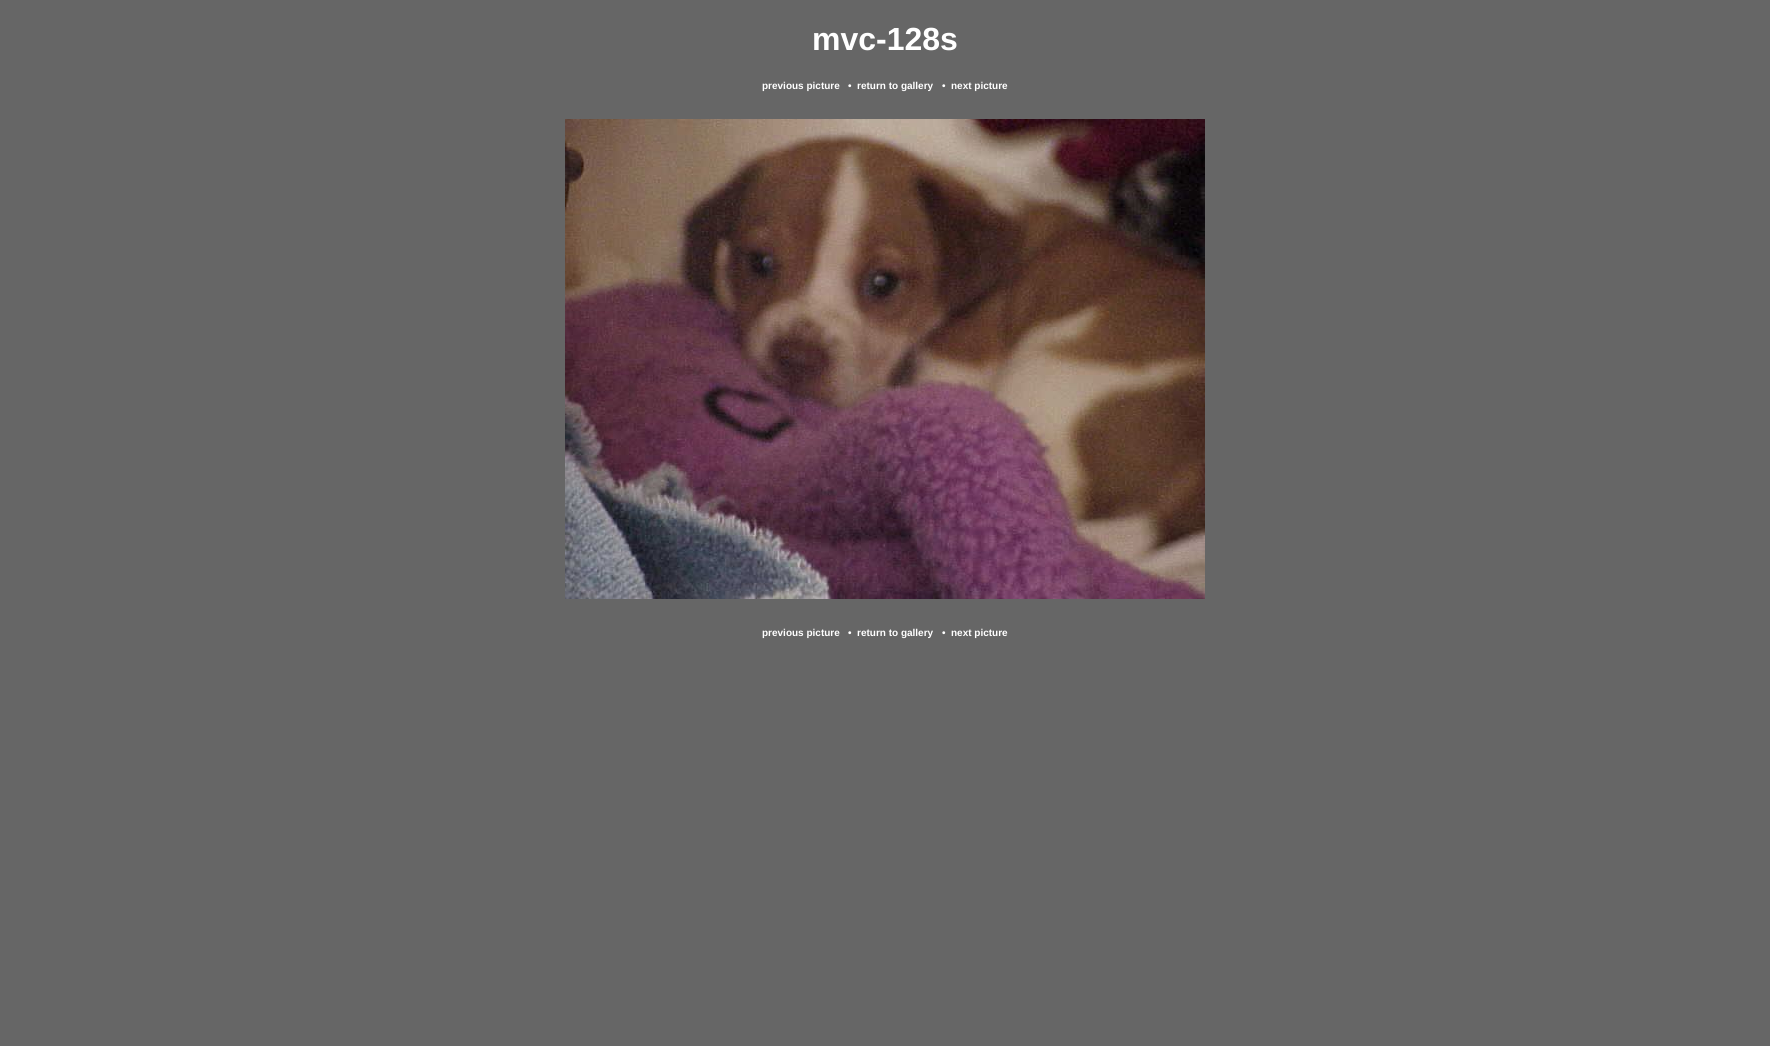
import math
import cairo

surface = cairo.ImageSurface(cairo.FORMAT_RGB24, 1770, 1046)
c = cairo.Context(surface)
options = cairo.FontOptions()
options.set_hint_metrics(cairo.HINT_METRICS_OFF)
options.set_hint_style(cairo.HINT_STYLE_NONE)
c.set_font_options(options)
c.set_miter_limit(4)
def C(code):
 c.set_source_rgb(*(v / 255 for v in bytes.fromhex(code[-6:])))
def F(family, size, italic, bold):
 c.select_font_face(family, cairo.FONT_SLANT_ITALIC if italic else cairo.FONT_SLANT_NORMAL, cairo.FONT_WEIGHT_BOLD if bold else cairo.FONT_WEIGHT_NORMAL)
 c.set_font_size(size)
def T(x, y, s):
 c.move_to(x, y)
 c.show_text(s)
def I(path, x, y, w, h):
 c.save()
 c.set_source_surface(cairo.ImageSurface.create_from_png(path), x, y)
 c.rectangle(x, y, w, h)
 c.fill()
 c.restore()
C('666666')
c.paint()
F('Liberation Sans',32,0,1)
C('ffffff')
T(812,50,'mvc-128s')
F('Liberation Sans',10,0,1)
T(762,89,'previous picture')
T(848,89,'•')
T(857,89,'return to gallery')
T(942,89,'•')
T(951,89,'next picture')
I('1.png',565,119,640,480)
T(762,636,'previous picture')
T(848,636,'•')
T(857,636,'return to gallery')
T(942,636,'•')
T(951,636,'next picture')
surface.write_to_png('o.png')
